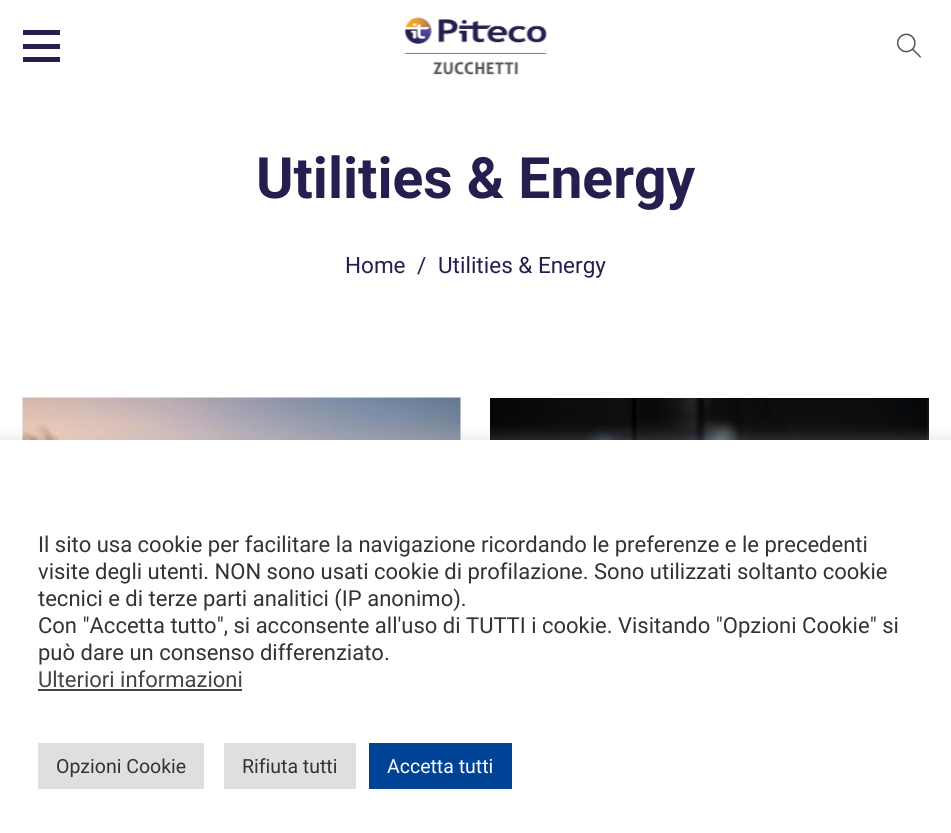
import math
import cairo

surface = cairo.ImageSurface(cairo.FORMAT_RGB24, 951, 833)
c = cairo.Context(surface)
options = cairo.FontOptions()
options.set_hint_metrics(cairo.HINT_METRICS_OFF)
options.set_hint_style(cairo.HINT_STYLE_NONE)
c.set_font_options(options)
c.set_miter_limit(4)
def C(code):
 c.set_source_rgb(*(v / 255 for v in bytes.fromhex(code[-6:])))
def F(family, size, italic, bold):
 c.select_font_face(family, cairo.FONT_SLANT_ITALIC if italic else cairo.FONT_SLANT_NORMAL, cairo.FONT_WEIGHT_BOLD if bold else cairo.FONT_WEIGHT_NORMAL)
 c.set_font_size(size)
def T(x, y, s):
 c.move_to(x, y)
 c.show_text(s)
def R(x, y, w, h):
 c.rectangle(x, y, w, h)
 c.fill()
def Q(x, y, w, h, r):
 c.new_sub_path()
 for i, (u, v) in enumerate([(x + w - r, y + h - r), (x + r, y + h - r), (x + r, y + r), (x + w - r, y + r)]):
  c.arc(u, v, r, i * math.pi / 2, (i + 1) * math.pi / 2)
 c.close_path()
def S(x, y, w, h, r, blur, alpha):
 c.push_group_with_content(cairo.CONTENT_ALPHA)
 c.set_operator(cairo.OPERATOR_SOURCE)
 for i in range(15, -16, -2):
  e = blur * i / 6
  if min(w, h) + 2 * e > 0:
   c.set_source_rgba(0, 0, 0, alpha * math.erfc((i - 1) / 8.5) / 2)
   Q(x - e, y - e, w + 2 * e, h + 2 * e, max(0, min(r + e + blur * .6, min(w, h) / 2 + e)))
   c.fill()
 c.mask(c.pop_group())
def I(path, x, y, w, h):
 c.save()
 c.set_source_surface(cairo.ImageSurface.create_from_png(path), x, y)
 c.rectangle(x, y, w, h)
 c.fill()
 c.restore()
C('ffffff')
c.paint()
C('251f4f')
R(23,44,37,5)
R(23,30,37,5)
R(23,57,37,5)
I('1.png',404,17,143,58)
I('2.png',896,33,25,25)
F('Roboto',57,0,1)
T(256,198,'Utilities & Energy')
F('Roboto',22.5,0,0)
T(345,273,'Home')
T(417,273,'/')
T(438,273,'Utilities & Energy')
I('3.png',22,397,439,43)
I('4.png',490,398,439,42)
C('acabab')
S(0,438,951,395,0,7.5,.3)
C('ffffff')
R(0,440,951,393)
F('Roboto',22,0,0)
C('333333')
T(38,552,'Il sito usa cookie per facilitare la navigazione ricordando le preferenze e le precedenti')
T(38,579,'visite degli utenti. NON sono usati cookie di profilazione. Sono utilizzati soltanto cookie')
T(38,606,'tecnici e di terze parti analitici (IP anonimo).')
T(38,633,'Con "Accetta tutto", si acconsente all\'uso di TUTTI i cookie. Visitando "Opzioni Cookie" si')
T(38,660,'può dare un consenso differenziato.')
C('444444')
T(38,687,'Ulteriori informazioni')
R(38,689,204,2)
C('dedfe0')
R(38,743,166,46)
F('Roboto',19.5,0,0)
C('333333')
T(56,773,'Opzioni Cookie')
C('dedfe0')
R(224,743,132,46)
C('333333')
T(242,773,'Rifiuta tutti')
C('004396')
R(369,743,143,46)
C('ffffff')
T(387,773,'Accetta tutti')
surface.write_to_png('o.png')
